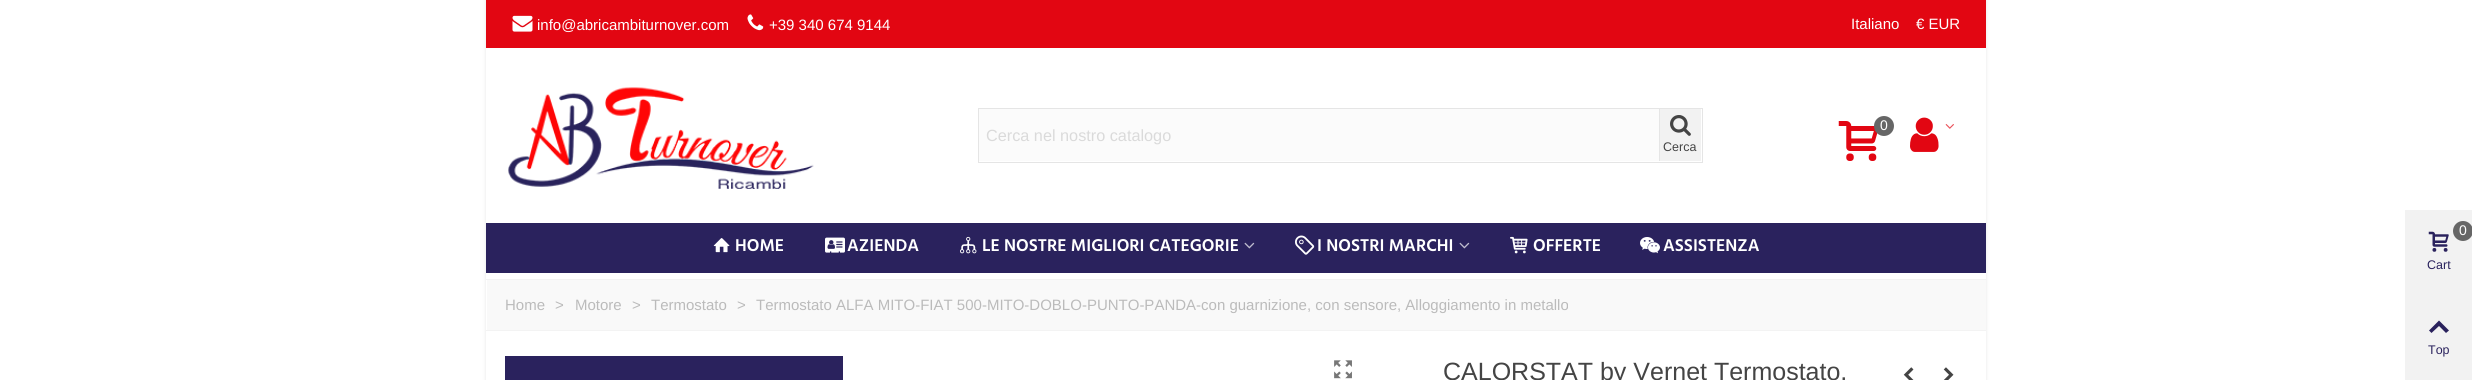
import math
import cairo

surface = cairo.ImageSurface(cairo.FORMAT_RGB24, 2472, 380)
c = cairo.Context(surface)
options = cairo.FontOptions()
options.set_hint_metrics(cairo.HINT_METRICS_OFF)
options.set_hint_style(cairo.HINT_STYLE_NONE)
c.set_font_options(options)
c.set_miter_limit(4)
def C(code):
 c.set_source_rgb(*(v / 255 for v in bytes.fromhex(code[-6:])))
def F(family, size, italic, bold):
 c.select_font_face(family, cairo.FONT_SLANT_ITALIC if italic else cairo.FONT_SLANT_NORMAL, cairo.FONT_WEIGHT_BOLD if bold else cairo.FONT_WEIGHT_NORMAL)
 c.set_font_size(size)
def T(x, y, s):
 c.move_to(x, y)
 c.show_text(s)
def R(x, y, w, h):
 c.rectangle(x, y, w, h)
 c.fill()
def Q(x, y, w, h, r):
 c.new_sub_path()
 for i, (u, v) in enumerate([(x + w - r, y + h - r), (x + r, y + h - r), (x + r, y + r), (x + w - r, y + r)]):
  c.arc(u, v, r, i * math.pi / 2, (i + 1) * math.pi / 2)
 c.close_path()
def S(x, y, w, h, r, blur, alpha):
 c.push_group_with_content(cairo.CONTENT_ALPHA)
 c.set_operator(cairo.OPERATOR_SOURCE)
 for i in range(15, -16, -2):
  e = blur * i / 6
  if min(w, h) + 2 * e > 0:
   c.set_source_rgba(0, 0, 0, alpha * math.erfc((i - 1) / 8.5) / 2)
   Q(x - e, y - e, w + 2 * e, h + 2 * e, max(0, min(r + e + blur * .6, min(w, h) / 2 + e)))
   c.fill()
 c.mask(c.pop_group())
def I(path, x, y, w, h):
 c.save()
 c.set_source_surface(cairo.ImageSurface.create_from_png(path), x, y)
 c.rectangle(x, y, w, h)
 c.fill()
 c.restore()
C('ffffff')
c.paint()
c.save()
c.set_fill_rule(cairo.FILL_RULE_EVEN_ODD)
c.new_path()
c.move_to(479,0)
c.line_to(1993,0)
c.line_to(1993,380)
c.line_to(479,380)
c.close_path()
c.move_to(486,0)
c.line_to(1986,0)
c.line_to(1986,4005)
c.line_to(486,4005)
c.close_path()
c.clip()
C('000000')
S(486,0,1500,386,0,2,.1)
c.restore()
C('e20612')
R(486,0,1500,48)
I('1.png',512,15,21,17)
F('Liberation Sans',15,0,0)
C('ffffff')
T(537,30,'info@abricambiturnover.com')
I('2.png',747,14,17,17)
T(769,30,'+39 340 674 9144')
T(1851,29,'Italiano')
T(1916,29,'€ EUR')
I('3.png',508,87,306,102)
I('4.png',1838,121,40,40)
C('666666')
c.arc(1884,126,10,0,2 * math.pi)
c.fill()
F('Liberation Sans',14,0,0)
C('ffffff')
T(1880,130,'0')
I('5.png',1910,117,29,35)
I('6.png',1945,124,9,5)
c.rectangle(978.5,108.5,724,54)
C('e5e5e5')
c.set_line_width(1)
c.stroke()
C('fbfbfb')
R(979,109,680,52)
F('Liberation Sans',16.25,0,0)
C('dadada')
T(986,141,'Cerca nel nostro catalogo')
C('f2f2f2')
R(1660,109,41,52)
C('e5e5e5')
R(1659,109,1,52)
I('7.png',1670,115,21,21)
F('Liberation Sans',12.5,0,0)
C('444444')
T(1663,151,'Cerca')
C('2a225d')
R(486,223,1500,50)
I('8.png',713,238,17,15)
F('Hind SemiBold',17.5,0,0)
C('ffffff')
T(735,251,'HOME')
I('9.png',825,237,20,16)
T(847,251,'AZIENDA')
I('10.png',960,236,17,18)
T(982,251,'LE NOSTRE MIGLIORI CATEGORIE')
I('11.png',1244,242,11,7)
I('12.png',1295,235,20,20)
T(1317,251,'I NOSTRI MARCHI')
I('11.png',1459,242,11,7)
I('13.png',1510,236,18,18)
T(1533,251,'OFFERTE')
I('14.png',1640,237,20,17)
T(1663,251,'ASSISTENZA')
C('f9f9f9')
R(487,280,1499,50)
C('f3f3f3')
R(486,279,1500,1)
R(486,330,1500,1)
F('Liberation Sans',15,0,0)
C('bbbbbb')
T(505,310,'Home')
T(555,310,'>')
T(575,310,'Motore')
T(632,310,'>')
T(651,310,'Termostato')
T(737,310,'>')
T(756,310,'Termostato ALFA MITO-FIAT 500-MITO-DOBLO-PUNTO-PANDA-con guarnizione, con sensore, Alloggiamento in metallo')
C('2a225d')
R(505,356,338,24)
I('15.png',1334,360,18,19)
F('Liberation Sans',25,0,0)
C('444444')
T(1443,380,'CALORSTAT by Vernet Termostato,')
I('16.png',1903,367,11,13)
I('17.png',1943,367,11,13)
C('f2f2f2')
R(2405,210,67,170)
I('18.png',2428,231,21,21)
C('666666')
c.arc(2463,231,10,0,2 * math.pi)
c.fill()
F('Liberation Sans',14,0,0)
C('ffffff')
T(2459,235,'0')
F('Liberation Sans',12.5,0,0)
C('2a225d')
T(2427,269,'Cart')
c.new_path()
c.move_to(2429,330.5)
c.line_to(2439,320.5)
c.line_to(2449,330.5)
c.line_to(2446,333)
c.line_to(2439,326)
c.line_to(2431.5,333)
c.close_path()
c.fill()
T(2428,354,'Top')
surface.write_to_png('o.png')
